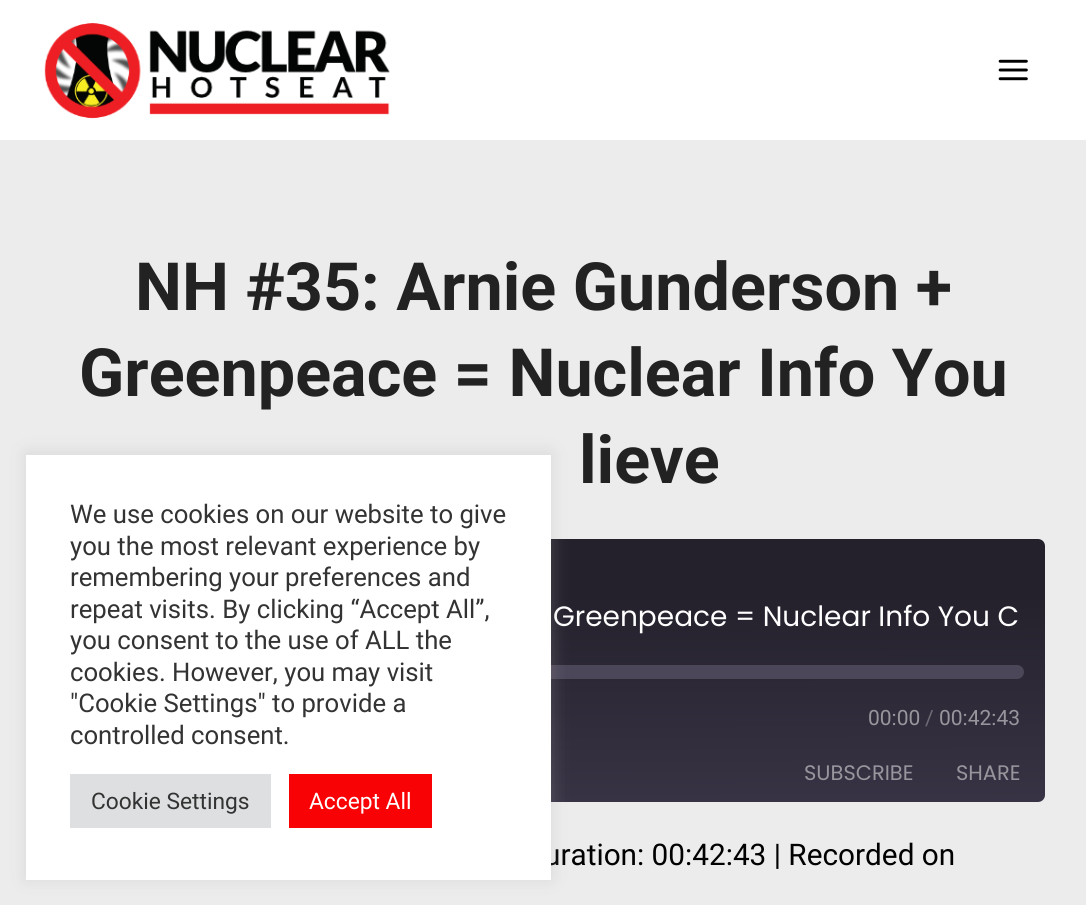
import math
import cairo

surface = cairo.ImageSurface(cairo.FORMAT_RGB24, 1086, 905)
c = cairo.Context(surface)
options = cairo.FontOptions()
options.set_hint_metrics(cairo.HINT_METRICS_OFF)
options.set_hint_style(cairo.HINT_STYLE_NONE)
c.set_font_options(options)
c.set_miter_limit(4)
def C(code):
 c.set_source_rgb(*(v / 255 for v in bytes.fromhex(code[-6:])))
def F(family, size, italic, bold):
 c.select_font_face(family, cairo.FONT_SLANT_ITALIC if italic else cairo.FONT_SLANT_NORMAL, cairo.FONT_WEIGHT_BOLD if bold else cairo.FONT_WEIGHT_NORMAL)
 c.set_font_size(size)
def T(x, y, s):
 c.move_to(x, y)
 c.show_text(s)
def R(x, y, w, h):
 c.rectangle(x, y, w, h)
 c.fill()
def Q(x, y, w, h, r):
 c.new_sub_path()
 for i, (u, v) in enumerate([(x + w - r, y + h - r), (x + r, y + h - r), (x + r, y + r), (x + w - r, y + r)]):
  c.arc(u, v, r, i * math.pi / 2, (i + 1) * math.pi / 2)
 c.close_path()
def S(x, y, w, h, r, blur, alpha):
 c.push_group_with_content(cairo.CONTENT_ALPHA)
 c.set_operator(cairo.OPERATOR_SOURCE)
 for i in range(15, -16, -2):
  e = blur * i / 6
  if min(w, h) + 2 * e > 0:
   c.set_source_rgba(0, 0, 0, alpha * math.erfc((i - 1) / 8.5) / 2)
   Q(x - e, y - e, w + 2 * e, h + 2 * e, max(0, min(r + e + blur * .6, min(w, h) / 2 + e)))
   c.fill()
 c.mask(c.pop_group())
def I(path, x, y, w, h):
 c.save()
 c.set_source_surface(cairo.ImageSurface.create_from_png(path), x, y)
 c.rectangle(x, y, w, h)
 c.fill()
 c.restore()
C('ececec')
c.paint()
C('ffffff')
R(0,0,1086,140)
I('1.png',44,23,346,96)
I('2.png',998,59,30,22)
F('Roboto',66.5,0,1)
C('222222')
T(135,310,'NH #35: Arnie Gunderson +')
T(79,396,'Greenpeace = Nuclear Info You')
T(579,483,'lieve')
gradient = cairo.LinearGradient(544,804,543,536)
gradient.add_color_stop_rgba(.01,0.22,0.2,0.267,1)
gradient.add_color_stop_rgba(.78,0.141,0.129,0.173,1)
c.set_source(gradient)
Q(42,539,1003,263,7)
c.fill()
F('Poppins',28,0,0)
C('ffffff')
T(553,626,'Greenpeace = Nuclear Info You C')
C('4c4659')
Q(173,665,851,14,7)
c.fill()
F('Roboto',21,0,0)
C('98959d')
T(868,725,'00:00')
C('6e6b75')
T(925,725,'/')
C('98959d')
T(939,725,'00:42:43')
F('Poppins',21,0,0)
T(804,780,'SUBSCRIBE')
T(956,780,'SHARE')
F('Roboto',29.75,0,0)
C('010101')
T(544,865,'uration: 00:42:43 | Recorded on')
C('acabab')
S(26,453,525,426,0,9,.3)
C('ffffff')
R(26,455,525,425)
F('Roboto',25.7,0,0)
C('333333')
T(70,523,'We use cookies on our website to give')
T(70,555,'you the most relevant experience by')
T(70,586,'remembering your preferences and')
T(70,618,'repeat visits. By clicking “Accept All”,')
T(70,649,'you consent to the use of ALL the')
T(70,681,'cookies. However, you may visit')
T(70,712,'"Cookie Settings" to provide a')
T(70,744,'controlled consent.')
C('dedfe0')
R(70,774,201,54)
F('Roboto',22.75,0,0)
C('333333')
T(91,809,'Cookie Settings')
C('f90205')
R(289,774,143,54)
C('ffffff')
T(309,809,'Accept All')
surface.write_to_png('o.png')
